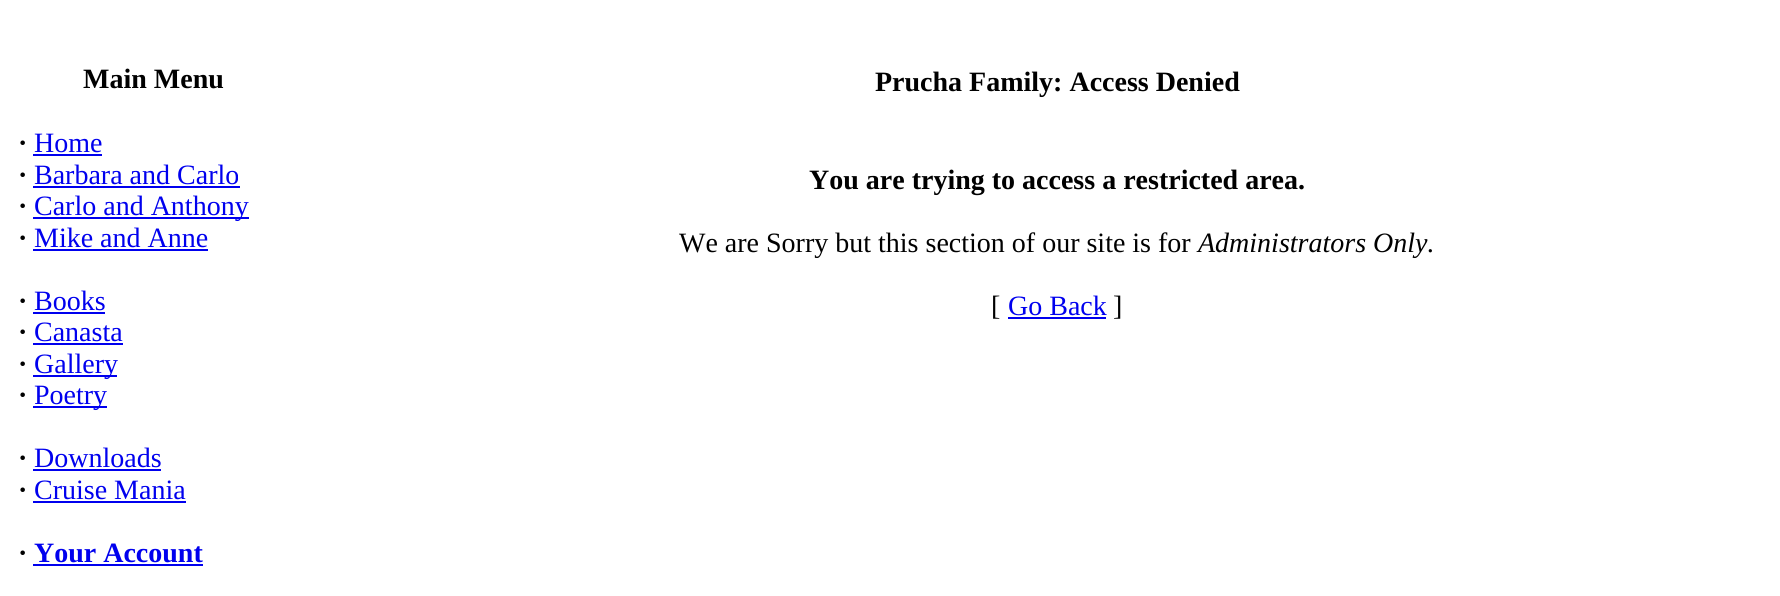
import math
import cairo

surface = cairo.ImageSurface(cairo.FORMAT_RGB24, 1780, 596)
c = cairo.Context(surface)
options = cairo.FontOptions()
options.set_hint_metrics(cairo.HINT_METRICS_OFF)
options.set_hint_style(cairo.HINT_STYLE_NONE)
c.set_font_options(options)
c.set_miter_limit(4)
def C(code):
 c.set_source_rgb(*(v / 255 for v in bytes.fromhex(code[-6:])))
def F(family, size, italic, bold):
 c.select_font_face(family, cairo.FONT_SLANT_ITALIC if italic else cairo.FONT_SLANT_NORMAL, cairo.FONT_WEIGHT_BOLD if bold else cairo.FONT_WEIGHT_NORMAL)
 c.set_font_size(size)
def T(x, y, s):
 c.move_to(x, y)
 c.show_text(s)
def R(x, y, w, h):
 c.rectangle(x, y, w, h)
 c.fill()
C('ffffff')
c.paint()
F('Liberation Serif',28,0,1)
C('000000')
T(83,88,'Main Menu')
T(18,152,'·')
F('Liberation Serif',28,0,0)
C('0000ee')
T(34,152,'Home')
R(33,154,69,2)
F('Liberation Serif',28,0,1)
C('000000')
T(18,184,'·')
F('Liberation Serif',28,0,0)
C('0000ee')
T(34,184,'Barbara and Carlo')
R(33,186,207,2)
F('Liberation Serif',28,0,1)
C('000000')
T(18,215,'·')
C('0000ee')
R(33,217,216,2)
F('Liberation Serif',28,0,0)
T(34,215,'Carlo and Anthony')
F('Liberation Serif',28,0,1)
C('000000')
T(18,247,'·')
F('Liberation Serif',28,0,0)
C('0000ee')
T(34,247,'Mike and Anne')
R(33,249,175,2)
F('Liberation Serif',28,0,1)
C('000000')
T(18,310,'·')
F('Liberation Serif',28,0,0)
C('0000ee')
T(34,310,'Books')
R(33,312,72,2)
F('Liberation Serif',28,0,1)
C('000000')
T(18,341,'·')
F('Liberation Serif',28,0,0)
C('0000ee')
T(34,341,'Canasta')
R(33,343,90,2)
F('Liberation Serif',28,0,1)
C('000000')
T(18,373,'·')
C('0000ee')
R(33,375,84,2)
F('Liberation Serif',28,0,0)
T(34,373,'Gallery')
F('Liberation Serif',28,0,1)
C('000000')
T(18,404,'·')
C('0000ee')
R(33,406,74,2)
F('Liberation Serif',28,0,0)
T(34,404,'Poetry')
F('Liberation Serif',28,0,1)
C('000000')
T(18,467,'·')
F('Liberation Serif',28,0,0)
C('0000ee')
T(34,467,'Downloads')
R(33,469,128,2)
F('Liberation Serif',28,0,1)
C('000000')
T(18,499,'·')
F('Liberation Serif',28,0,0)
C('0000ee')
T(34,499,'Cruise Mania')
R(33,501,153,2)
F('Liberation Serif',28,0,1)
C('000000')
T(18,562,'·')
C('0000ee')
T(34,562,'Your Account')
R(33,564,170,2)
C('000000')
T(875,91,'Prucha Family: Access Denied')
T(809,189,'You are trying to access a restricted area.')
F('Liberation Serif',28,0,0)
T(679,252,'We are Sorry but this section of our site is for')
F('Liberation Serif',28,1,0)
T(1198,252,'Administrators Only.')
F('Liberation Serif',28,0,0)
T(991,315,'[')
C('0000ee')
T(1008,315,'Go Back')
R(1008,317,98,2)
C('000000')
T(1113,315,']')
surface.write_to_png('o.png')
